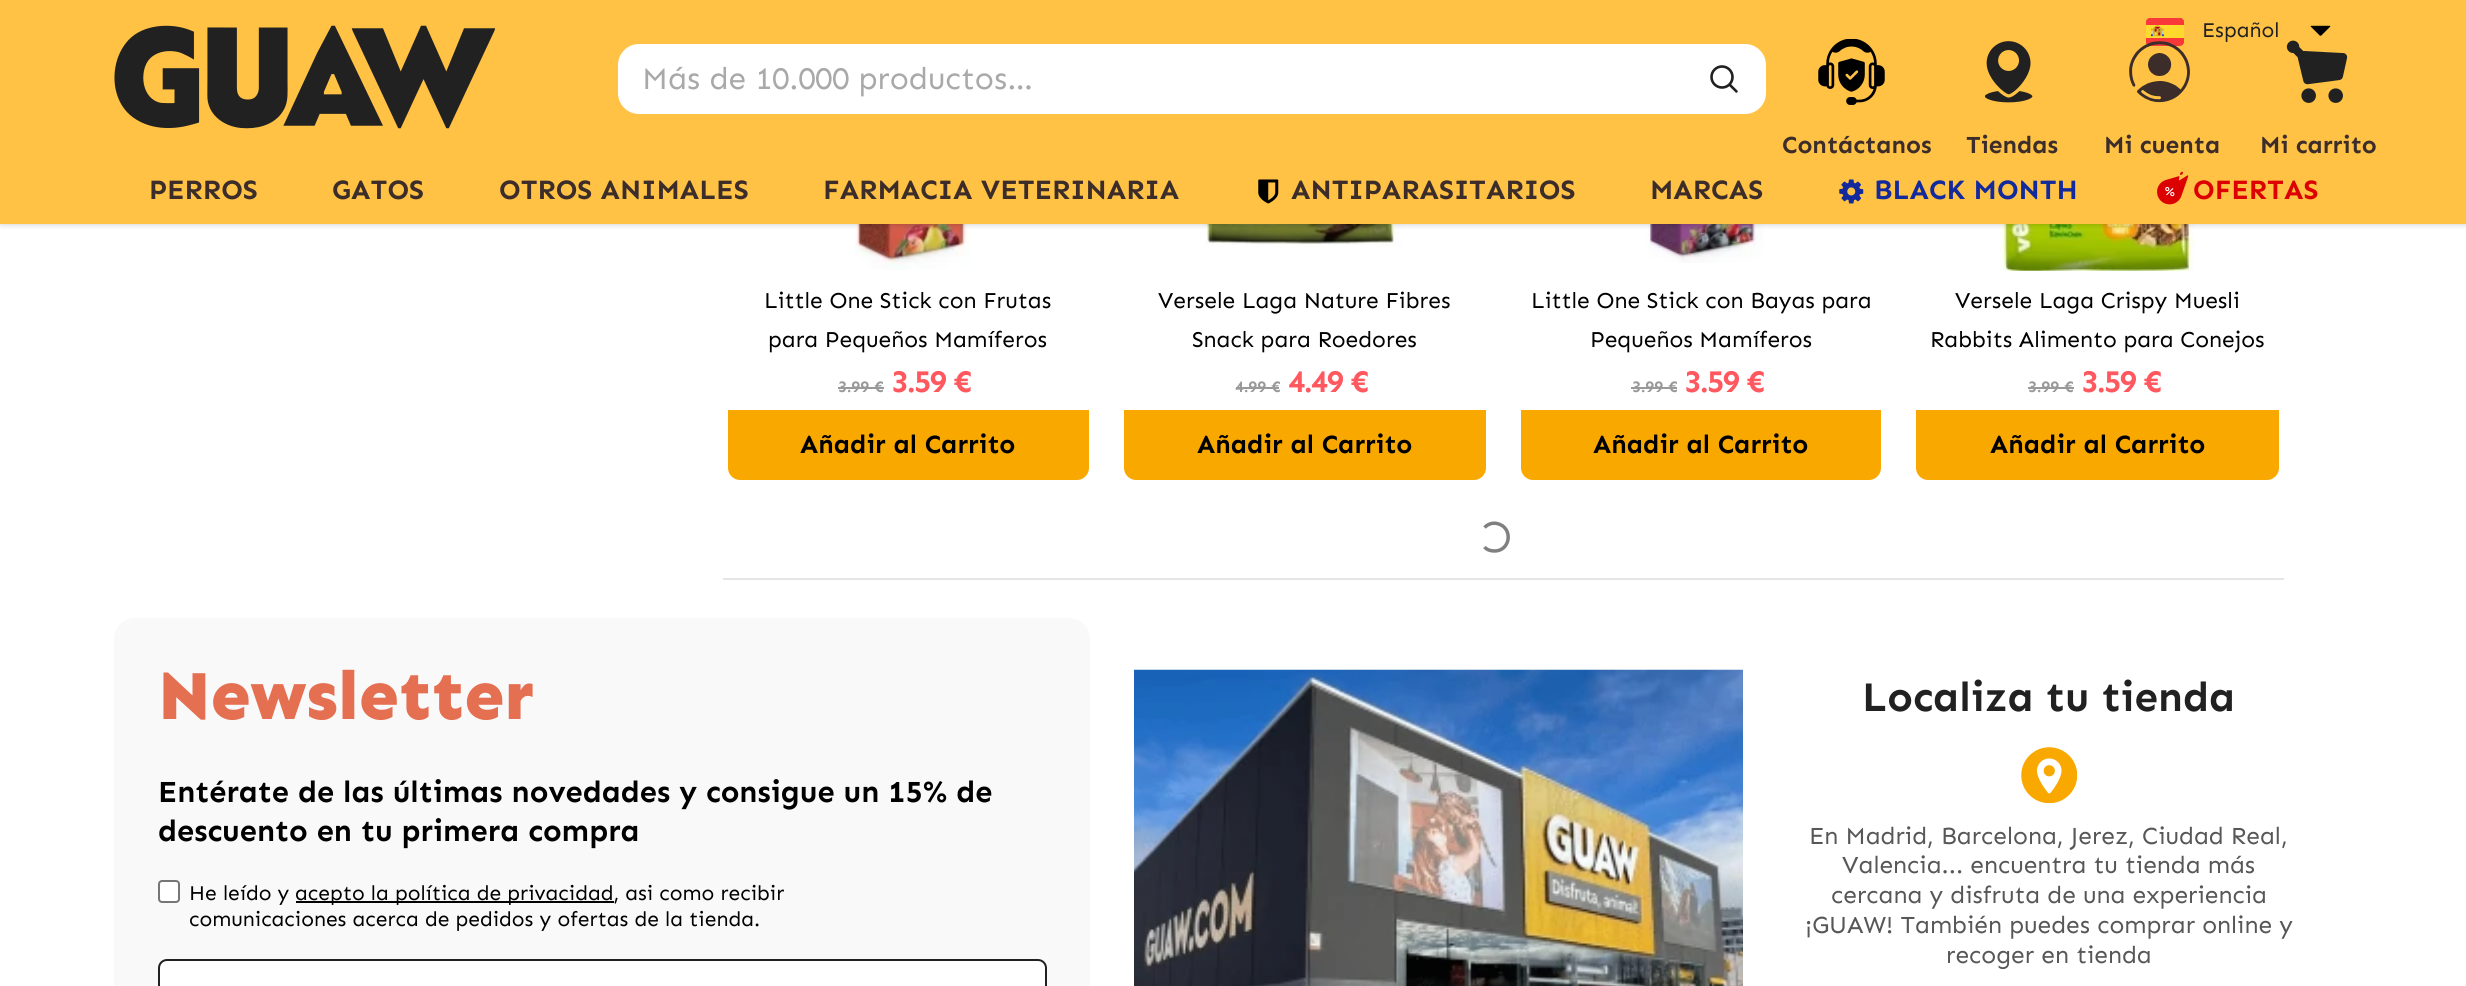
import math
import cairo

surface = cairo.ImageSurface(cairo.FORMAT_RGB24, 2466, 986)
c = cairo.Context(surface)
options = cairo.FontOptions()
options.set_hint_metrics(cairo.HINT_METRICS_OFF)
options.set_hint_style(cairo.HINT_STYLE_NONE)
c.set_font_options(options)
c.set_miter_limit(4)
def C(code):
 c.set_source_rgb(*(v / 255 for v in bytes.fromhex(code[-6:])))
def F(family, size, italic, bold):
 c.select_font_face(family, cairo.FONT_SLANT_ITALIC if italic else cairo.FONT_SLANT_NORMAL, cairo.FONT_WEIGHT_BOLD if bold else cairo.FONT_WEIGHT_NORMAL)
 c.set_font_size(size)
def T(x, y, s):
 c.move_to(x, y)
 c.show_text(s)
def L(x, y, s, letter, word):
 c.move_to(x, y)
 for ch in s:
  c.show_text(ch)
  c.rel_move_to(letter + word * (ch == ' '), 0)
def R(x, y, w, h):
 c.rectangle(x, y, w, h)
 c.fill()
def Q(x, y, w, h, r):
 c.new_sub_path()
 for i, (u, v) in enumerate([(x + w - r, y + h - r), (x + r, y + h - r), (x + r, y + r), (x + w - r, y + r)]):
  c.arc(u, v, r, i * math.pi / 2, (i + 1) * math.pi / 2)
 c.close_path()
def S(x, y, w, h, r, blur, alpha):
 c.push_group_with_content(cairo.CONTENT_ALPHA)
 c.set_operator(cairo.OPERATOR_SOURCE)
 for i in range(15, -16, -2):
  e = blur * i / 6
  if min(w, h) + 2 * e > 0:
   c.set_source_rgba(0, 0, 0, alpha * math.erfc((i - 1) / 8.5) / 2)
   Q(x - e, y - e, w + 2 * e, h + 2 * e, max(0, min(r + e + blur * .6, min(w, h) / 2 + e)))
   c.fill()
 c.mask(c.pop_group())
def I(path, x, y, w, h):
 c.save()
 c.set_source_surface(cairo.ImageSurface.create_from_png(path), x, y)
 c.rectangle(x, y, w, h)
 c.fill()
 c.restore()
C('ffffff')
c.paint()
I('12.png',854,224,117,46)
I('13.png',1203,224,199,22)
I('14.png',1647,224,117,39)
I('15.png',2000,224,195,47)
C('000000')
S(0,2,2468,224,0,2,.06)
S(0,2,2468,224,0,2.5,.07)
C('ffc244')
R(0,0,2466,224)
I('1.png',114,25,381,104)
C('ffffff')
Q(618,44,1148,70,21)
c.fill()
F('Sen',31.5,0,0)
C('a9a9a9')
T(642,89,'Más de 10.000 productos…')
I('2.png',1710,65,28,28)
I('3.png',2146,18,38,28)
F('Sen',21,0,0)
C('212121')
T(2202,37,'Español')
I('4.png',2310,25,21,11)
I('5.png',1818,39,67,66)
F('Sen',24.5,0,1)
C('3c2d2a')
T(1782,153,'Contáctanos')
I('6.png',1985,41,48,62)
T(1966,153,'Tiendas')
I('7.png',2129,41,61,62)
T(2104,153,'Mi cuenta')
I('8.png',2286,40,62,63)
T(2260,153,'Mi carrito')
F('Sen',28,0,1)
T(149,199,'PERROS')
T(332,199,'GATOS')
T(499,199,'OTROS ANIMALES')
T(823,199,'FARMACIA VETERINARIA')
I('9.png',1258,179,21,25)
T(1291,199,'ANTIPARASITARIOS')
T(1650,199,'MARCAS')
I('10.png',1839,179,25,25)
C('132a9c')
T(1874,199,'BLACK MONTH')
I('11.png',2157,171,32,34)
C('dc0000')
T(2193,199,'OFERTAS')
F('Sen',22.75,0,0)
C('000000')
T(764,308,'Little One Stick con Frutas')
T(768,347,'para Pequeños Mamíferos')
F('Sen',16,0,1)
C('999999')
T(838,392,'3.99 €')
R(838,387,46,2)
F('Sen',31.5,0,1)
C('ff585f')
L(891,392,'3.59 €',-1.75,0)
C('f9a800')
c.new_path()
c.move_to(728,410)
c.line_to(1089,410)
c.line_to(1089,468)
c.curve_to(1089,474.5,1083.5,480,1077,480)
c.line_to(740,480)
c.curve_to(733.5,480,728,474.5,728,468)
c.close_path()
c.fill()
F('Sen',26.25,0,1)
C('000000')
T(800,453,'Añadir al Carrito')
F('Sen',22.75,0,0)
T(1158,308,'Versele Laga Nature Fibres')
T(1192,347,'Snack para Roedores')
F('Sen',16,0,1)
C('999999')
T(1235,392,'4.99 €')
R(1236,387,43,2)
F('Sen',31.5,0,1)
C('ff585f')
L(1288,392,'4.49 €',-1.75,0)
C('f9a800')
c.new_path()
c.move_to(1124,410)
c.line_to(1486,410)
c.line_to(1486,468)
c.curve_to(1486,474.5,1480.5,480,1474,480)
c.line_to(1136,480)
c.curve_to(1129.5,480,1124,474.5,1124,468)
c.close_path()
c.fill()
F('Sen',26.25,0,1)
C('000000')
T(1197,453,'Añadir al Carrito')
F('Sen',22.75,0,0)
T(1531,308,'Little One Stick con Bayas para')
T(1590,347,'Pequeños Mamíferos')
F('Sen',16,0,1)
C('999999')
T(1632,392,'3.99 €')
R(1631,387,46,2)
F('Sen',31.5,0,1)
C('ff585f')
L(1684,392,'3.59 €',-1.75,0)
C('f9a800')
c.new_path()
c.move_to(1521,410)
c.line_to(1881,410)
c.line_to(1881,468)
c.curve_to(1881,474.5,1875.5,480,1869,480)
c.line_to(1533,480)
c.curve_to(1526.5,480,1521,474.5,1521,468)
c.close_path()
c.fill()
F('Sen',26.25,0,1)
C('000000')
T(1593,453,'Añadir al Carrito')
F('Sen',22.75,0,0)
T(1955,308,'Versele Laga Crispy Muesli')
T(1930,347,'Rabbits Alimento para Conejos')
F('Sen',16,0,1)
C('999999')
T(2028,392,'3.99 €')
R(2028,387,46,2)
F('Sen',31.5,0,1)
C('ff585f')
L(2081,392,'3.59 €',-1.75,0)
C('f9a800')
c.new_path()
c.move_to(1916,410)
c.line_to(2279,410)
c.line_to(2279,468)
c.curve_to(2279,474.5,2273.5,480,2267,480)
c.line_to(1928,480)
c.curve_to(1921.5,480,1916,474.5,1916,468)
c.close_path()
c.fill()
F('Sen',26.25,0,1)
C('000000')
T(1990,453,'Añadir al Carrito')
c.new_path()
c.move_to(1484.5,527.5)
c.curve_to(1488,524,1492.5,522.5,1497,523.5)
c.curve_to(1513.5,527,1511,551,1494.5,551)
c.curve_to(1491,551,1487,550,1484.5,547)
C('808080')
c.set_line_width(3.5)
c.stroke()
C('e5e5e5')
R(723,578,1561,2)
C('f9f9f9')
Q(114,618,976,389,21)
c.fill()
F('Sen ExtraBold',70,0,0)
C('e56f51')
T(158,719,'Newsletter')
F('Sen',30.6,0,1)
C('000000')
T(158,802,'Entérate de las últimas novedades y consigue un 15% de')
T(158,841,'descuento en tu primera compra')
C('ffffff')
Q(159,881,20,21,3)
c.fill_preserve()
C('767676')
c.set_line_width(2)
c.stroke()
F('Sen',21,0,0)
C('000000')
T(189,900,'He leído y')
R(296,901,318,2)
T(295,900,'acepto la política de privacidad, asi como recibir')
T(189,926,'comunicaciones acerca de pedidos y ofertas de la tienda.')
C('ffffff')
Q(159,960,887,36,8)
c.fill_preserve()
C('212121')
c.stroke()
I('16.png',1134,669,609,317)
F('Sen',42,0,1)
T(1862,711,'Localiza tu tienda')
I('17.png',2021,747,56,56)
F('Sen',24.5,0,0)
C('575757')
T(1809,844,'En Madrid, Barcelona, Jerez, Ciudad Real,')
T(1842,873,'Valencia... encuentra tu tienda más')
T(1831,903,'cercana y disfruta de una experiencia')
T(1805,933,'¡GUAW! También puedes comprar online y')
T(1946,963,'recoger en tienda')
surface.write_to_png('o.png')
